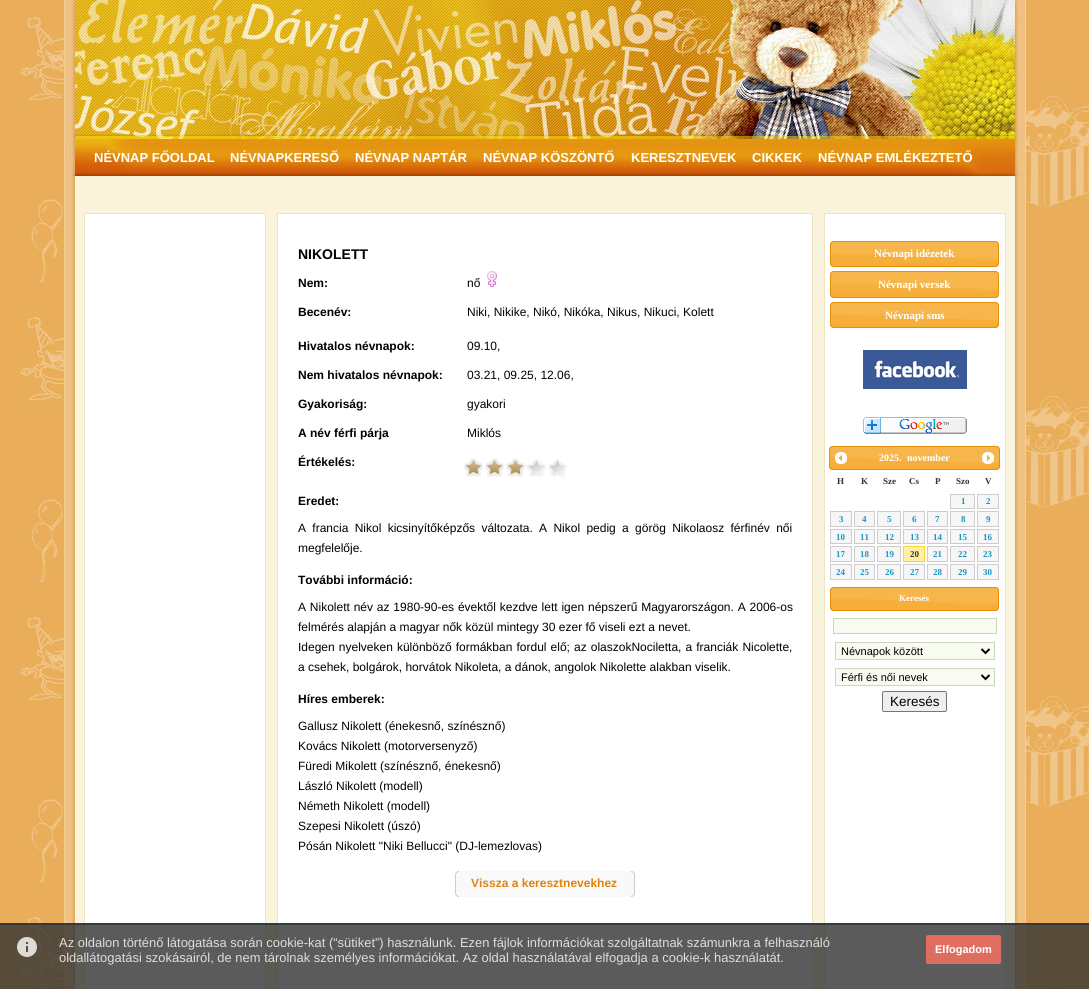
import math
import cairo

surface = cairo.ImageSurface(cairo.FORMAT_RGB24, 1089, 989)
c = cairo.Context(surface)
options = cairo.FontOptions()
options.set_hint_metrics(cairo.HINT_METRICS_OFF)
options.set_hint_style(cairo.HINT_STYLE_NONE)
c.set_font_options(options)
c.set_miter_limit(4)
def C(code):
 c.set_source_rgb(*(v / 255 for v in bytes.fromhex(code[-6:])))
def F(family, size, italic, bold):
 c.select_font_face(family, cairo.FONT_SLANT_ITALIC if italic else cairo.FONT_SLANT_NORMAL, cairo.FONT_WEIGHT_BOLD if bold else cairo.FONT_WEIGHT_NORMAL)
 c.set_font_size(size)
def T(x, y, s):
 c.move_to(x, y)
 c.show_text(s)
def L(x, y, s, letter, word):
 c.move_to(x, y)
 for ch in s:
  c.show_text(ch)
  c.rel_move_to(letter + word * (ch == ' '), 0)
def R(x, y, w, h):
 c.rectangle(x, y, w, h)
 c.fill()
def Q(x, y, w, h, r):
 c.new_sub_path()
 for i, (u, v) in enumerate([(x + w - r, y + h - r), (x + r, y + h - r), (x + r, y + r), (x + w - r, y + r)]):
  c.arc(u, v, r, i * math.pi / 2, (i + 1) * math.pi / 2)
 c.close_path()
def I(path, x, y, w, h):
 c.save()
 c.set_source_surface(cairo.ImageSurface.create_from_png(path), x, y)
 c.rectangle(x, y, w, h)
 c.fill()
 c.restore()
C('ffffff')
c.paint()
I('1.png',0,0,1089,989)
I('2.png',64,0,962,139)
I('3.png',64,139,962,37)
F('Liberation Sans',13,0,1)
C('ffffff')
T(94,162,'NÉVNAP FŐOLDAL')
T(230,162,'NÉVNAPKERESŐ')
T(355,162,'NÉVNAP NAPTÁR')
T(483,162,'NÉVNAP KÖSZÖNTŐ')
T(631,162,'KERESZTNEVEK')
T(752,162,'CIKKEK')
T(818,162,'NÉVNAP EMLÉKEZTETŐ')
I('4.png',64,176,962,813)
c.rectangle(84.5,213.5,181,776)
c.fill_preserve()
C('eee4c1')
c.set_line_width(1)
c.stroke()
C('ffffff')
c.rectangle(277.5,213.5,535,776)
c.fill_preserve()
C('eee4c1')
c.stroke()
F('Liberation Sans',14,0,1)
C('000000')
T(298,259,'NIKOLETT')
F('Liberation Sans',12,0,1)
T(298,287,'Nem:')
F('Liberation Sans',12,0,0)
T(467,287,'nő')
I('5.png',487,271,10,16)
F('Liberation Sans',12,0,1)
T(298,316,'Becenév:')
F('Liberation Sans',12,0,0)
T(467,316,'Niki, Nikike, Nikó, Nikóka, Nikus, Nikuci, Kolett')
F('Liberation Sans',12,0,1)
T(298,350,'Hivatalos névnapok:')
F('Liberation Sans',12,0,0)
T(467,350,'09.10,')
F('Liberation Sans',12,0,1)
T(298,379,'Nem hivatalos névnapok:')
F('Liberation Sans',12,0,0)
T(467,379,'03.21, 09.25, 12.06,')
F('Liberation Sans',12,0,1)
T(298,408,'Gyakoriság:')
F('Liberation Sans',12,0,0)
T(467,408,'gyakori')
F('Liberation Sans',12,0,1)
T(298,437,'A név férfi párja')
F('Liberation Sans',12,0,0)
T(467,437,'Miklós')
F('Liberation Sans',12,0,1)
T(298,466,'Értékelés:')
I('6.png',464,459,103,18)
I('7.png',464,458,65,18)
T(298,505,'Eredet:')
F('Liberation Sans',12,0,0)
L(298,532,'A francia Nikol kicsinyítőképzős változata. A Nikol pedig a görög Nikolaosz férfinév női',0,3)
T(298,552,'megfelelője.')
F('Liberation Sans',12,0,1)
T(298,584,'További információ:')
F('Liberation Sans',12,0,0)
L(298,611,'A Nikolett név az 1980-90-es évektől kezdve lett igen népszerű Magyarországon. A 2006-os',0,.5)
T(298,631,'felmérés alapján a magyar nők közül mintegy 30 ezer fő viseli ezt a nevet.')
L(298,651,'Idegen nyelveken különböző formákban fordul elő; az olaszokNociletta, a franciák Nicolette,',0,.75)
T(298,671,'a csehek, bolgárok, horvátok Nikoleta, a dánok, angolok Nikolette alakban viselik.')
F('Liberation Sans',12,0,1)
T(298,703,'Híres emberek:')
F('Liberation Sans',12,0,0)
T(298,730,'Gallusz Nikolett (énekesnő, színésznő)')
T(298,750,'Kovács Nikolett (motorversenyző)')
T(298,770,'Füredi Mikolett (színésznő, énekesnő)')
T(298,790,'László Nikolett (modell)')
T(298,810,'Németh Nikolett (modell)')
T(298,830,'Szepesi Nikolett (úszó)')
T(298,850,'Pósán Nikolett "Niki Bellucci" (DJ-lemezlovas)')
C('f9f9f9')
R(459,871,172,26)
I('8.png',455,871,4,26)
F('Liberation Sans',12,0,1)
C('e08210')
T(471,887,'Vissza a keresztnevekhez')
I('9.png',631,871,4,26)
C('ffffff')
c.rectangle(824.5,213.5,181,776)
c.fill_preserve()
C('eee4c1')
c.stroke()
I('10.png',830,241,169,26)
Q(830.5,241.5,168,25,3.5)
C('e78f08')
c.stroke()
F('Liberation Serif',11,0,1)
C('ffffff')
T(874,257,'Névnapi idézetek')
I('11.png',830,271,169,27)
Q(830.5,271.5,168,26,3.5)
C('e78f08')
c.stroke()
C('ffffff')
T(878,288,'Névnapi versek')
I('10.png',830,302,169,26)
Q(830.5,302.5,168,25,3.5)
C('e78f08')
c.stroke()
C('ffffff')
T(885,319,'Névnapi sms')
I('12.png',863,350,104,39)
I('13.png',863,417,104,17)
I('14.png',829,446,171,24)
Q(829.5,446.5,170,23,3.5)
C('e78f08')
c.stroke()
I('15.png',835,452,12,12)
F('Liberation Serif',10,0,1)
C('ffffff')
T(879,461,'2025.')
T(907,461,'november')
I('16.png',982,452,12,12)
F('Liberation Serif',9,0,1)
C('333333')
T(837,484,'H')
T(861,484,'K')
T(883,484,'Sze')
T(909,484,'Cs')
T(935,484,'P')
T(956,484,'Szo')
T(985,484,'V')
C('f6f6f6')
c.rectangle(950.5,494.5,24,14)
c.fill_preserve()
C('cccccc')
c.stroke()
C('1c94c4')
T(961,504,'1')
C('f6f6f6')
c.rectangle(977.5,494.5,21,14)
c.fill_preserve()
C('cccccc')
c.stroke()
C('1c94c4')
T(986,504,'2')
C('f6f6f6')
c.rectangle(830.5,511.5,21,15)
c.fill_preserve()
C('cccccc')
c.stroke()
C('1c94c4')
T(839,522,'3')
C('f6f6f6')
c.rectangle(854.5,511.5,20,15)
c.fill_preserve()
C('cccccc')
c.stroke()
C('1c94c4')
T(862,522,'4')
C('f6f6f6')
c.rectangle(877.5,511.5,23,15)
c.fill_preserve()
C('cccccc')
c.stroke()
C('1c94c4')
T(887,522,'5')
C('f6f6f6')
c.rectangle(903.5,511.5,21,15)
c.fill_preserve()
C('cccccc')
c.stroke()
C('1c94c4')
T(912,522,'6')
C('f6f6f6')
c.rectangle(927.5,511.5,20,15)
c.fill_preserve()
C('cccccc')
c.stroke()
C('1c94c4')
T(935,522,'7')
C('f6f6f6')
c.rectangle(950.5,511.5,24,15)
c.fill_preserve()
C('cccccc')
c.stroke()
C('1c94c4')
T(961,522,'8')
C('f6f6f6')
c.rectangle(977.5,511.5,21,15)
c.fill_preserve()
C('cccccc')
c.stroke()
C('1c94c4')
T(986,522,'9')
C('f6f6f6')
c.rectangle(830.5,529.5,21,14)
c.fill_preserve()
C('cccccc')
c.stroke()
C('1c94c4')
T(836,540,'10')
C('f6f6f6')
c.rectangle(854.5,529.5,20,14)
c.fill_preserve()
C('cccccc')
c.stroke()
C('1c94c4')
T(860,540,'11')
C('f6f6f6')
c.rectangle(877.5,529.5,23,14)
c.fill_preserve()
C('cccccc')
c.stroke()
C('1c94c4')
T(885,540,'12')
C('f6f6f6')
c.rectangle(903.5,529.5,21,14)
c.fill_preserve()
C('cccccc')
c.stroke()
C('1c94c4')
T(910,540,'13')
C('f6f6f6')
c.rectangle(927.5,529.5,20,14)
c.fill_preserve()
C('cccccc')
c.stroke()
C('1c94c4')
T(933,540,'14')
C('f6f6f6')
c.rectangle(950.5,529.5,24,14)
c.fill_preserve()
C('cccccc')
c.stroke()
C('1c94c4')
T(958,540,'15')
C('f6f6f6')
c.rectangle(977.5,529.5,21,14)
c.fill_preserve()
C('cccccc')
c.stroke()
C('1c94c4')
T(983,540,'16')
C('f6f6f6')
c.rectangle(830.5,546.5,21,15)
c.fill_preserve()
C('cccccc')
c.stroke()
C('1c94c4')
T(836,557,'17')
C('f6f6f6')
c.rectangle(854.5,546.5,20,15)
c.fill_preserve()
C('cccccc')
c.stroke()
C('1c94c4')
T(860,557,'18')
C('f6f6f6')
c.rectangle(877.5,546.5,23,15)
c.fill_preserve()
C('cccccc')
c.stroke()
C('1c94c4')
T(885,557,'19')
C('fff0a5')
c.rectangle(903.5,546.5,21,15)
c.fill_preserve()
C('fed22f')
c.stroke()
C('333333')
T(910,557,'20')
C('f6f6f6')
c.rectangle(927.5,546.5,20,15)
c.fill_preserve()
C('cccccc')
c.stroke()
C('1c94c4')
T(933,557,'21')
C('f6f6f6')
c.rectangle(950.5,546.5,24,15)
c.fill_preserve()
C('cccccc')
c.stroke()
C('1c94c4')
T(958,557,'22')
C('f6f6f6')
c.rectangle(977.5,546.5,21,15)
c.fill_preserve()
C('cccccc')
c.stroke()
C('1c94c4')
T(983,557,'23')
C('f6f6f6')
c.rectangle(830.5,564.5,21,15)
c.fill_preserve()
C('cccccc')
c.stroke()
C('1c94c4')
T(836,575,'24')
C('f6f6f6')
c.rectangle(854.5,564.5,20,15)
c.fill_preserve()
C('cccccc')
c.stroke()
C('1c94c4')
T(860,575,'25')
C('f6f6f6')
c.rectangle(877.5,564.5,23,15)
c.fill_preserve()
C('cccccc')
c.stroke()
C('1c94c4')
T(885,575,'26')
C('f6f6f6')
c.rectangle(903.5,564.5,21,15)
c.fill_preserve()
C('cccccc')
c.stroke()
C('1c94c4')
T(910,575,'27')
C('f6f6f6')
c.rectangle(927.5,564.5,20,15)
c.fill_preserve()
C('cccccc')
c.stroke()
C('1c94c4')
T(933,575,'28')
C('f6f6f6')
c.rectangle(950.5,564.5,24,15)
c.fill_preserve()
C('cccccc')
c.stroke()
C('1c94c4')
T(958,575,'29')
C('f6f6f6')
c.rectangle(977.5,564.5,21,15)
c.fill_preserve()
C('cccccc')
c.stroke()
C('1c94c4')
T(983,575,'30')
I('17.png',830,587,169,24)
Q(830.5,587.5,168,23,3.5)
C('e78f08')
c.stroke()
C('ffffff')
T(899,601,'Keresés')
C('f7fbf0')
c.rectangle(833.5,618.5,163,15)
c.fill_preserve()
C('ced6bd')
c.stroke()
C('f7fbf0')
c.rectangle(835.5,642.5,159,17)
c.fill_preserve()
C('ced6bd')
c.stroke()
c.new_path()
c.move_to(981.5,649)
c.line_to(985.5,653)
c.line_to(989.5,649)
C('000000')
c.set_line_width(2)
c.stroke()
F('Liberation Sans',11,0,0)
T(841,655,'Névnapok között')
C('f7fbf0')
c.rectangle(835.5,668.5,159,17)
c.fill_preserve()
C('ced6bd')
c.set_line_width(1)
c.stroke()
c.new_path()
c.move_to(981.5,675)
c.line_to(985.5,679)
c.line_to(989.5,675)
C('000000')
c.set_line_width(2)
c.stroke()
T(841,681,'Férfi és női nevek')
C('efefef')
Q(882.5,691.5,64,20,1.5)
c.fill_preserve()
C('767676')
c.set_line_width(1)
c.stroke()
F('Liberation Sans',13.5,0,0)
C('000000')
T(890,706,'Keresés')
c.set_source_rgba(0.2,0.2,0.2,0.8)
R(0,923,1089,66)
c.set_source_rgba(0.173,0.208,0.227,0.8)
R(0,923,1089,2)
I('18.png',17,937,20,20)
F('Liberation Sans',12.95,0,0)
C('dedede')
T(59,947,'Az oldalon történő látogatása során cookie-kat (“sütiket”) használunk. Ezen fájlok információkat szolgáltatnak számunkra a felhasználó')
T(59,962,'oldallátogatási szokásairól, de nem tárolnak személyes információkat. Az oldal használatával elfogadja a cookie-k használatát.')
c.save()
Q(926,935,75,29,2)
c.clip()
gradient = cairo.LinearGradient(964,909,964,936)
gradient.add_color_stop_rgba(0,0.894,0.435,0.38,1)
gradient.add_color_stop_rgba(1,0.855,0.427,0.369,1)
c.set_source(gradient)
R(926,935,75,1)
gradient = cairo.LinearGradient(964,936,964,963)
gradient.add_color_stop_rgba(0,0.894,0.435,0.38,1)
gradient.add_color_stop_rgba(1,0.855,0.427,0.369,1)
c.set_source(gradient)
R(926,936,75,27)
gradient = cairo.LinearGradient(964,963,964,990)
gradient.add_color_stop_rgba(0,0.894,0.435,0.38,1)
gradient.add_color_stop_rgba(1,0.855,0.427,0.369,1)
c.set_source(gradient)
R(926,963,75,1)
c.restore()
F('Liberation Sans',11,0,1)
C('ffffff')
T(935,953,'Elfogadom')
surface.write_to_png('o.png')
